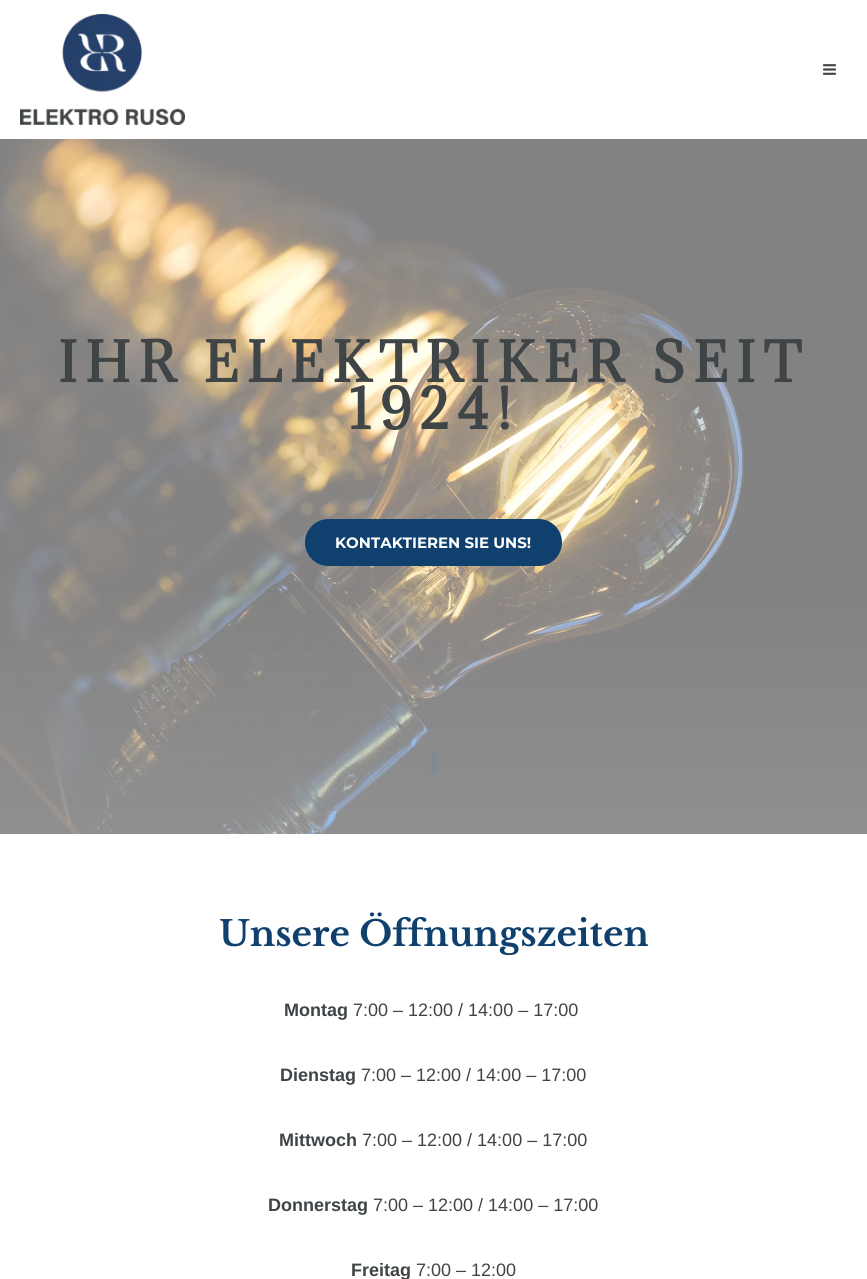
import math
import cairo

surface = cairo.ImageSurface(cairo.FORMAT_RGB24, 867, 1279)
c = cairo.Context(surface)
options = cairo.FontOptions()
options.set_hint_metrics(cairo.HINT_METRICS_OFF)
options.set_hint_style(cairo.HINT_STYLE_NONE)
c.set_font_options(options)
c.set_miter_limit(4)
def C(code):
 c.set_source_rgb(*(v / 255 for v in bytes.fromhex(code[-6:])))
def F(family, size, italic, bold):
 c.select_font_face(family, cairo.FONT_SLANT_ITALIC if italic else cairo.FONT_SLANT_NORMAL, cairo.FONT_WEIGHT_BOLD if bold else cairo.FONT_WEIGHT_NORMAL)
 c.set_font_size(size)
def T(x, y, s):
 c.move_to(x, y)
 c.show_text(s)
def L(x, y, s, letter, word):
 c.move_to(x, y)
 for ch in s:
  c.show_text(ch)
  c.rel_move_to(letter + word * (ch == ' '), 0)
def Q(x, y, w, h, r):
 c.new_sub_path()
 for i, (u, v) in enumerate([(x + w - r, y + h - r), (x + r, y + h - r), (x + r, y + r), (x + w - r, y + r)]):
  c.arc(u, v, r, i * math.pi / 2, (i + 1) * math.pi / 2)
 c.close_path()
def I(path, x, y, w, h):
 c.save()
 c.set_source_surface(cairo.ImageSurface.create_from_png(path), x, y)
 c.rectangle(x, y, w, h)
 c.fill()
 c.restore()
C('ffffff')
c.paint()
I('1.png',20,14,165,111)
I('2.png',823,64,13,11)
I('3.png',0,139,867,695)
F('Adamina',52,0,1)
C('3f4447')
L(58,382,'IHR ELEKTRIKER SEIT',7.6,0)
L(349,429,'1924!',7.6,0)
C('10406d')
Q(305,519,257,47,23.5)
c.fill()
F('Montserrat',15,0,1)
C('ffffff')
T(335,548,'KONTAKTIEREN SIE UNS!')
I('4.png',428,748,12,26)
F('Libre Baskerville',35,0,1)
C('10406d')
T(219,946,'Unsere Öffnungszeiten')
F('Liberation Sans',18,0,1)
C('3f4447')
T(284,1016,'Montag')
F('Liberation Sans',18,0,0)
T(353,1016,'7:00 – 12:00 / 14:00 – 17:00')
F('Liberation Sans',18,0,1)
T(280,1081,'Dienstag')
F('Liberation Sans',18,0,0)
T(361,1081,'7:00 – 12:00 / 14:00 – 17:00')
F('Liberation Sans',18,0,1)
T(279,1146,'Mittwoch')
F('Liberation Sans',18,0,0)
T(362,1146,'7:00 – 12:00 / 14:00 – 17:00')
F('Liberation Sans',18,0,1)
T(268,1211,'Donnerstag')
F('Liberation Sans',18,0,0)
T(373,1211,'7:00 – 12:00 / 14:00 – 17:00')
F('Liberation Sans',18,0,1)
T(351,1276,'Freitag')
F('Liberation Sans',18,0,0)
T(416,1276,'7:00 – 12:00')
surface.write_to_png('o.png')
